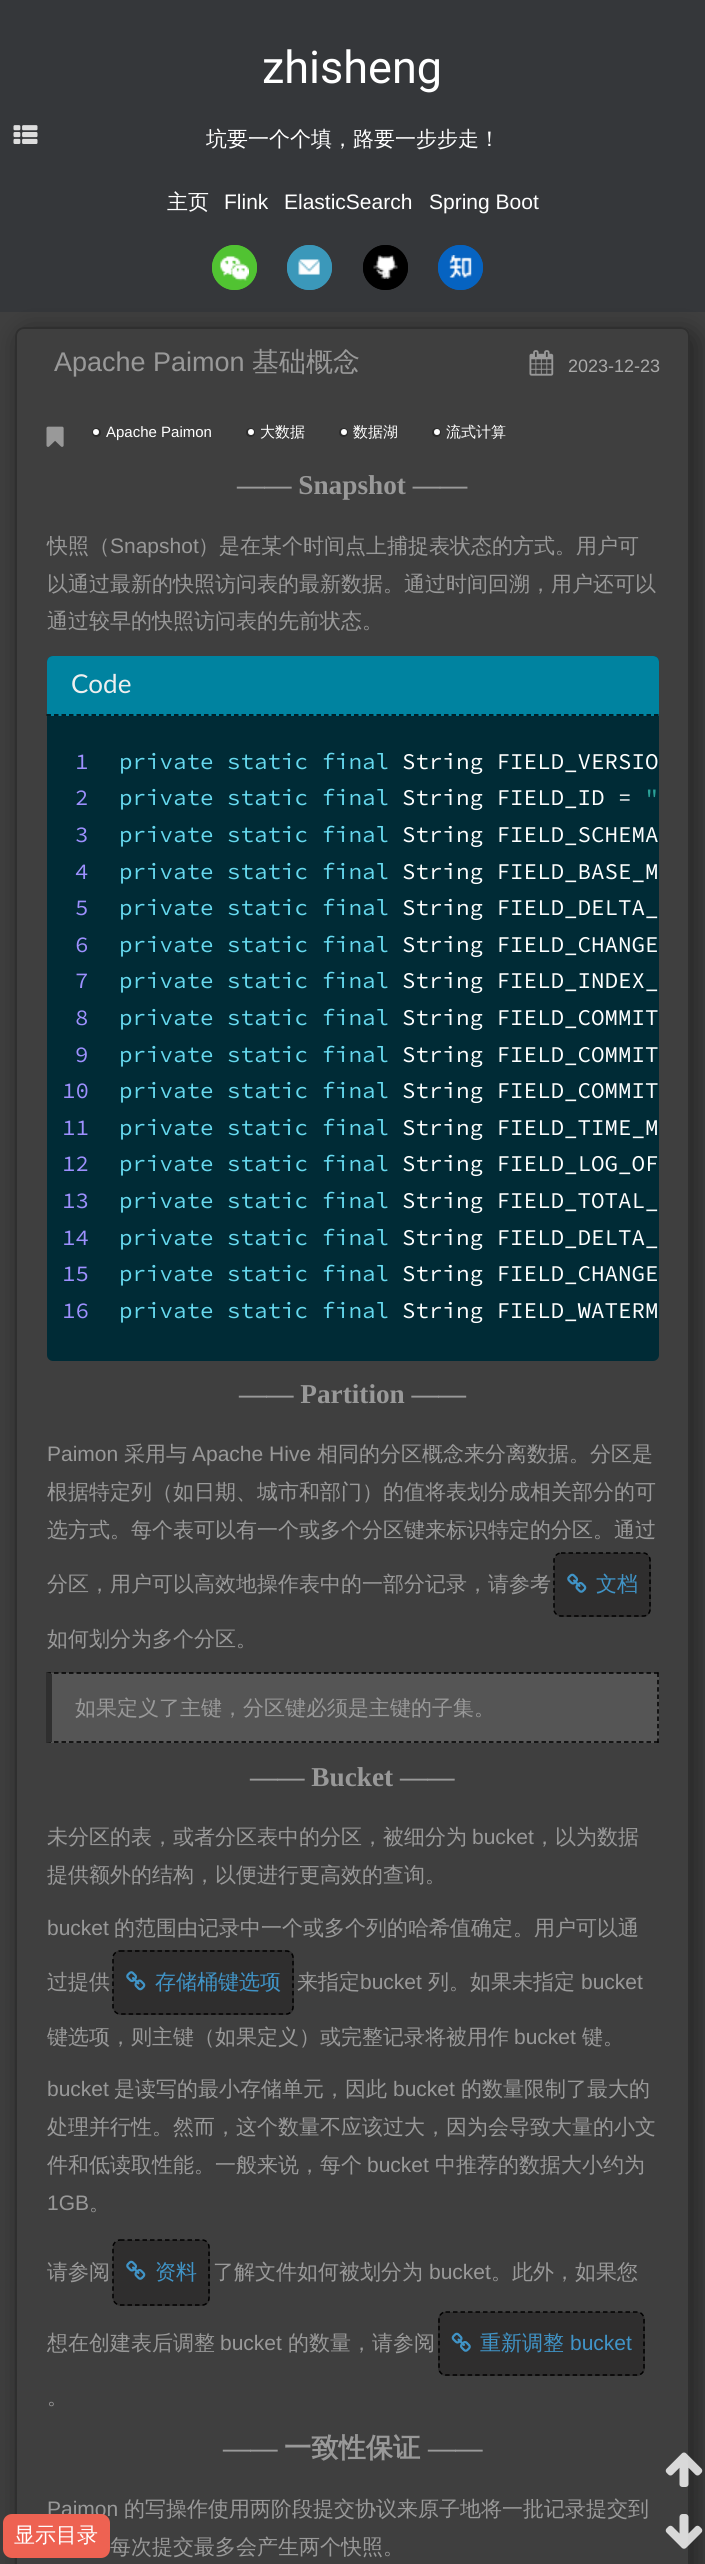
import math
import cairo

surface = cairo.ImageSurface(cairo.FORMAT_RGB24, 705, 2564)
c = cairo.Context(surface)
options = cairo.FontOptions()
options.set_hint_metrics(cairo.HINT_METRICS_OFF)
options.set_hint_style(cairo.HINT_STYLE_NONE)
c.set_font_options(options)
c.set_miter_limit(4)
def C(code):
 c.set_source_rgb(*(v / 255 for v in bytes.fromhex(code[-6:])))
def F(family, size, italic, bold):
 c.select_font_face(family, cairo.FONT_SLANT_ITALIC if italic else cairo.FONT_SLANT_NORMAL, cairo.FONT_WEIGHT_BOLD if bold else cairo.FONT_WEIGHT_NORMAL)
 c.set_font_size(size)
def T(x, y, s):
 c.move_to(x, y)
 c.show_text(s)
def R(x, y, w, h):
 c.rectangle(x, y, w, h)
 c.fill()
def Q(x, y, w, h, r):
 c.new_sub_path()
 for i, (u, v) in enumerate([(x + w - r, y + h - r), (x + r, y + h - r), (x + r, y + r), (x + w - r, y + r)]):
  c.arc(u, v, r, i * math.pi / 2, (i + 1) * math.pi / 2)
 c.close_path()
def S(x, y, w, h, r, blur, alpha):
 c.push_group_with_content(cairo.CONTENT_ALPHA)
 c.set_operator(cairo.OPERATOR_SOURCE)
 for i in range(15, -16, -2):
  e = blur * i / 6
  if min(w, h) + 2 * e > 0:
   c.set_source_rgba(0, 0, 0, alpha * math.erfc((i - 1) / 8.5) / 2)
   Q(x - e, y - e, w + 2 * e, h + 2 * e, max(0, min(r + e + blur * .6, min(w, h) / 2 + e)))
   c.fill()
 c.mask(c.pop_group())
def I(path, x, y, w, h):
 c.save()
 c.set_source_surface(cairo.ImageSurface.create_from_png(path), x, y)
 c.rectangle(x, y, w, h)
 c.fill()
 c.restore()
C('3f3f3f')
c.paint()
C('35373a')
R(0,0,705,312)
I('1.png',13,125,25,19)
F('Roboto',45,0,0)
C('ffffff')
T(262,83,'zhisheng')
F('WenQuanYi Zen Hei Medium',21,0,0)
T(206,146,'坑要一个个填，路要一步步走！')
T(167,209,'主页')
F('Liberation Sans',21,0,0)
T(224,209,'Flink')
T(284,209,'ElasticSearch')
T(429,209,'Spring Boot')
C('51c332')
c.new_path()
c.arc(234.5,267.5,22.5,0,2 * math.pi)
c.fill()
I('2.png',219,255,30,26)
c.arc(234.5,267.5,21.5,0,2 * math.pi)
c.stroke()
C('3b98ba')
c.arc(309.5,267.5,22.5,0,2 * math.pi)
c.fill()
I('3.png',298,259,22,16)
c.arc(309.5,267.5,21.5,0,2 * math.pi)
c.stroke()
C('000000')
c.arc(385.5,267.5,22.5,0,2 * math.pi)
c.fill()
I('4.png',373,255,25,24)
c.arc(385.5,267.5,21.5,0,2 * math.pi)
c.stroke()
C('0663c1')
c.arc(460.5,267.5,22.5,0,2 * math.pi)
c.fill()
I('5.png',449,255,23,23)
c.arc(460.5,267.5,21.5,0,2 * math.pi)
c.stroke()
c.save()
c.set_fill_rule(cairo.FILL_RULE_EVEN_ODD)
c.new_path()
c.move_to(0,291)
c.line_to(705,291)
c.line_to(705,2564)
c.line_to(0,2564)
c.close_path()
c.move_to(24,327)
c.line_to(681,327)
c.curve_to(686,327,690,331,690,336)
c.line_to(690,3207)
c.curve_to(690,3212,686,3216,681,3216)
c.line_to(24,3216)
c.curve_to(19,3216,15,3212,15,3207)
c.line_to(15,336)
c.curve_to(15,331,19,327,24,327)
c.close_path()
c.clip()
C('000000')
S(21,333,675,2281,9,13.5,.46)
c.restore()
Q(16,328,673,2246,8)
C('2f2f2f')
c.stroke()
F('Liberation Sans',27,0,0)
C('999999')
T(54,371,'Apache Paimon')
F('WenQuanYi Zen Hei Medium',27,0,0)
T(252,371,'基础概念')
I('6.png',46,426,18,21)
c.arc(96.5,432.5,3.5,0,2 * math.pi)
C('2c2c2c')
c.stroke()
C('ffffff')
c.arc(96,432,3,0,2 * math.pi)
c.fill()
F('Liberation Sans',15,0,0)
T(106,437,'Apache Paimon')
c.new_path()
c.arc(250.5,432.5,3.5,0,2 * math.pi)
C('2c2c2c')
c.stroke()
C('ffffff')
c.arc(251,432,3,0,2 * math.pi)
c.fill()
F('WenQuanYi Zen Hei Medium',15,0,0)
T(260,437,'大数据')
c.new_path()
c.arc(343.5,432.5,3.5,0,2 * math.pi)
C('2c2c2c')
c.stroke()
C('ffffff')
c.arc(344,432,3,0,2 * math.pi)
c.fill()
T(353,437,'数据湖')
c.new_path()
c.arc(436.5,432.5,3.5,0,2 * math.pi)
C('2c2c2c')
c.stroke()
C('ffffff')
c.arc(437,432,3,0,2 * math.pi)
c.fill()
T(446,437,'流式计算')
F('Liberation Serif',27.25,0,1)
C('999999')
T(237,494,'—— Snapshot ——')
F('WenQuanYi Zen Hei Medium',21,0,0)
T(47,553,'快照（')
F('Liberation Sans',21,0,0)
T(110,553,'Snapshot')
F('WenQuanYi Zen Hei Medium',21,0,0)
T(198,553,'）是在某个时间点上捕捉表状态的方式。用户可')
T(47,591,'以通过最新的快照访问表的最新数据。通过时间回溯，用户还可以')
T(47,628,'通过较早的快照访问表的先前状态。')
C('002b36')
Q(47,656,612,705,6)
c.fill()
C('0083a0')
c.new_path()
c.move_to(53,656)
c.line_to(653,656)
c.curve_to(656.5,656,659,658.5,659,662)
c.line_to(659,716)
c.line_to(47,716)
c.line_to(47,662)
c.curve_to(47,658.5,49.5,656,53,656)
c.close_path()
c.fill()
c.new_path()
c.move_to(46.5,715)
c.line_to(658.5,715)
C('000000')
c.set_line_width(1.5)
c.set_dash([4.5,3])
c.stroke()
F('Lato',26,0,0)
C('efefef')
T(71,693,'Code')
F('Source Code Pro',22.5,0,0)
C('9e90ff')
T(75,769,'1')
T(75,805,'2')
T(75,842,'3')
T(75,879,'4')
T(75,915,'5')
T(75,952,'6')
T(75,988,'7')
T(75,1025,'8')
T(75,1062,'9')
T(62,1098,'10')
T(62,1135,'11')
T(62,1171,'12')
T(62,1208,'13')
T(62,1245,'14')
T(62,1281,'15')
T(62,1318,'16')
C('66d9ef')
T(119,769,'private static final')
C('ffffff')
T(402,769,'String FIELD_VERSIO')
C('66d9ef')
T(119,805,'private static final')
C('ffffff')
T(402,805,'String FIELD_ID =')
C('2aa198')
T(645,805,'"')
C('66d9ef')
T(119,842,'private static final')
C('ffffff')
T(402,842,'String FIELD_SCHEMA')
C('66d9ef')
T(119,879,'private static final')
C('ffffff')
T(402,879,'String FIELD_BASE_M')
C('66d9ef')
T(119,915,'private static final')
C('ffffff')
T(402,915,'String FIELD_DELTA_')
C('66d9ef')
T(119,952,'private static final')
C('ffffff')
T(402,952,'String FIELD_CHANGE')
C('66d9ef')
T(119,988,'private static final')
C('ffffff')
T(402,988,'String FIELD_INDEX_')
C('66d9ef')
T(119,1025,'private static final')
C('ffffff')
T(402,1025,'String FIELD_COMMIT')
C('66d9ef')
T(119,1062,'private static final')
C('ffffff')
T(402,1062,'String FIELD_COMMIT')
C('66d9ef')
T(119,1098,'private static final')
C('ffffff')
T(402,1098,'String FIELD_COMMIT')
C('66d9ef')
T(119,1135,'private static final')
C('ffffff')
T(402,1135,'String FIELD_TIME_M')
C('66d9ef')
T(119,1171,'private static final')
C('ffffff')
T(402,1171,'String FIELD_LOG_OF')
C('66d9ef')
T(119,1208,'private static final')
C('ffffff')
T(402,1208,'String FIELD_TOTAL_')
C('66d9ef')
T(119,1245,'private static final')
C('ffffff')
T(402,1245,'String FIELD_DELTA_')
C('66d9ef')
T(119,1281,'private static final')
C('ffffff')
T(402,1281,'String FIELD_CHANGE')
C('66d9ef')
T(119,1318,'private static final')
C('ffffff')
T(402,1318,'String FIELD_WATERM')
F('Liberation Serif',27.25,0,1)
C('999999')
T(239,1403,'—— Partition ——')
F('Liberation Sans',21,0,0)
T(47,1461,'Paimon')
F('WenQuanYi Zen Hei Medium',21,0,0)
T(124,1461,'采用与')
F('Liberation Sans',21,0,0)
T(192,1461,'Apache Hive')
F('WenQuanYi Zen Hei Medium',21,0,0)
T(317,1461,'相同的分区概念来分离数据。分区是')
T(47,1499,'根据特定列（如日期、城市和部门）的值将表划分成相关部分的可')
T(47,1537,'选方式。每个表可以有一个或多个分区键来标识特定的分区。通过')
T(47,1591,'分区，用户可以高效地操作表中的一部分记录，请参考')
C('2f2e2e')
Q(554,1553,97,64,8)
c.fill()
c.new_path()
c.move_to(561,1553)
c.line_to(643.5,1553)
c.curve_to(647,1553,650,1556.5,650,1560)
c.line_to(650,1609.5)
c.curve_to(650,1613,647,1616,643.5,1616)
c.line_to(561,1616)
c.curve_to(557.5,1616,554,1613,554,1609.5)
c.line_to(554,1560)
c.curve_to(554,1556.5,557.5,1553,561,1553)
c.close_path()
C('000000')
c.stroke()
I('7.png',567,1573,20,20)
C('4094c7')
T(596,1591,'文档')
C('999999')
T(47,1646,'如何划分为多个分区。')
C('555555')
R(47,1673,612,70)
c.new_path()
c.move_to(46.5,1673)
c.line_to(658.5,1673)
C('000000')
c.stroke()
c.new_path()
c.move_to(658,1672.5)
c.line_to(658,1743)
c.set_dash([4.5,2.83])
c.stroke()
c.new_path()
c.move_to(46.5,1742)
c.line_to(658.5,1742)
c.set_dash([4.5,3])
c.stroke()
C('2f2f2f')
c.new_path()
c.move_to(46,1743)
c.line_to(46,1672)
c.line_to(52,1674)
c.line_to(52,1742)
c.close_path()
c.fill()
C('999999')
T(75,1715,'如果定义了主键，分区键必须是主键的子集。')
F('Liberation Serif',27.25,0,1)
T(250,1786,'—— Bucket ——')
F('WenQuanYi Zen Hei Medium',21,0,0)
T(47,1844,'未分区的表，或者分区表中的分区，被细分为')
F('Liberation Sans',21,0,0)
T(472,1844,'bucket')
F('WenQuanYi Zen Hei Medium',21,0,0)
T(534,1844,'，以为数据')
T(47,1882,'提供额外的结构，以便进行更高效的查询。')
F('Liberation Sans',21,0,0)
T(47,1935,'bucket')
F('WenQuanYi Zen Hei Medium',21,0,0)
T(114,1935,'的范围由记录中一个或多个列的哈希值确定。用户可以通')
T(47,1989,'过提供')
C('2f2e2e')
Q(113,1950,181,65,8)
c.fill()
c.new_path()
c.move_to(120,1951)
c.line_to(286.5,1951)
c.curve_to(290,1951,293,1954,293,1957.5)
c.line_to(293,2007)
c.curve_to(293,2010.5,290,2014,286.5,2014)
c.line_to(120,2014)
c.curve_to(116.5,2014,113,2010.5,113,2007)
c.line_to(113,1957.5)
c.curve_to(113,1954,116.5,1951,120,1951)
c.close_path()
C('000000')
c.stroke()
I('8.png',126,1971,20,20)
C('4094c7')
T(155,1989,'存储桶键选项')
C('999999')
T(297,1989,'来指定')
F('Liberation Sans',21,0,0)
T(360,1989,'bucket')
F('WenQuanYi Zen Hei Medium',21,0,0)
T(428,1989,'列。如果未指定')
F('Liberation Sans',21,0,0)
T(581,1989,'bucket')
F('WenQuanYi Zen Hei Medium',21,0,0)
T(47,2044,'键选项，则主键（如果定义）或完整记录将被用作')
F('Liberation Sans',21,0,0)
T(514,2044,'bucket')
F('WenQuanYi Zen Hei Medium',21,0,0)
T(582,2044,'键。')
F('Liberation Sans',21,0,0)
T(47,2096,'bucket')
F('WenQuanYi Zen Hei Medium',21,0,0)
T(114,2096,'是读写的最小存储单元，因此')
F('Liberation Sans',21,0,0)
T(393,2096,'bucket')
F('WenQuanYi Zen Hei Medium',21,0,0)
T(461,2096,'的数量限制了最大的')
T(47,2134,'处理并行性。然而，这个数量不应该过大，因为会导致大量的小文')
T(47,2172,'件和低读取性能。一般来说，每个')
F('Liberation Sans',21,0,0)
T(367,2172,'bucket')
F('WenQuanYi Zen Hei Medium',21,0,0)
T(435,2172,'中推荐的数据大小约为')
F('Liberation Sans',21,0,0)
T(47,2210,'1GB')
F('WenQuanYi Zen Hei Medium',21,0,0)
T(89,2210,'。')
T(47,2279,'请参阅')
C('2f2e2e')
Q(113,2240,97,66,8)
c.fill()
c.new_path()
c.move_to(120,2240)
c.line_to(202.5,2240)
c.curve_to(206,2240,209,2243.5,209,2247)
c.line_to(209,2298)
c.curve_to(209,2301.5,206,2305,202.5,2305)
c.line_to(120,2305)
c.curve_to(116.5,2305,113,2301.5,113,2298)
c.line_to(113,2247)
c.curve_to(113,2243.5,116.5,2240,120,2240)
c.close_path()
C('000000')
c.stroke()
I('7.png',126,2260,20,20)
C('4094c7')
T(155,2279,'资料')
C('999999')
T(213,2279,'了解文件如何被划分为')
F('Liberation Sans',21,0,0)
T(429,2279,'bucket')
F('WenQuanYi Zen Hei Medium',21,0,0)
T(491,2279,'。此外，如果您')
T(47,2350,'想在创建表后调整')
F('Liberation Sans',21,0,0)
T(220,2350,'bucket')
F('WenQuanYi Zen Hei Medium',21,0,0)
T(288,2350,'的数量，请参阅')
C('2f2e2e')
Q(438,2312,207,64,8)
c.fill()
c.new_path()
c.move_to(445.5,2312)
c.line_to(637.5,2312)
c.curve_to(641,2312,644,2315.5,644,2319)
c.line_to(644,2368.5)
c.curve_to(644,2372,641,2375,637.5,2375)
c.line_to(445.5,2375)
c.curve_to(442,2375,439,2372,439,2368.5)
c.line_to(439,2319)
c.curve_to(439,2315.5,442,2312,445.5,2312)
c.close_path()
C('000000')
c.stroke()
I('9.png',451,2332,20,20)
C('4094c7')
T(480,2350,'重新调整')
F('Liberation Sans',21,0,0)
T(570,2350,'bucket')
F('WenQuanYi Zen Hei Medium',21,0,0)
C('999999')
T(47,2404,'。')
F('Liberation Serif',27.25,0,1)
T(223,2457,'——')
F('WenQuanYi Zen Hei',27.25,0,1)
T(284,2457,'一致性保证')
F('Liberation Serif',27.25,0,1)
T(428,2457,'——')
F('Liberation Sans',21,0,0)
T(47,2516,'Paimon')
F('WenQuanYi Zen Hei Medium',21,0,0)
T(124,2516,'的写操作使用两阶段提交协议来原子地将一批记录提交到')
T(110,2554,'每次提交最多会产生两个快照。')
I('10.png',529,350,25,26)
F('Liberation Sans',18,0,0)
C('aaaaaa')
T(568,372,'2023-12-23')
C('ee6252')
Q(3,2514,107,44,9)
c.fill()
F('WenQuanYi Zen Hei Medium',21,0,0)
C('ffffff')
T(14,2542,'显示目录')
I('11.png',665,2452,38,35)
I('12.png',665,2514,38,35)
surface.write_to_png('o.png')
